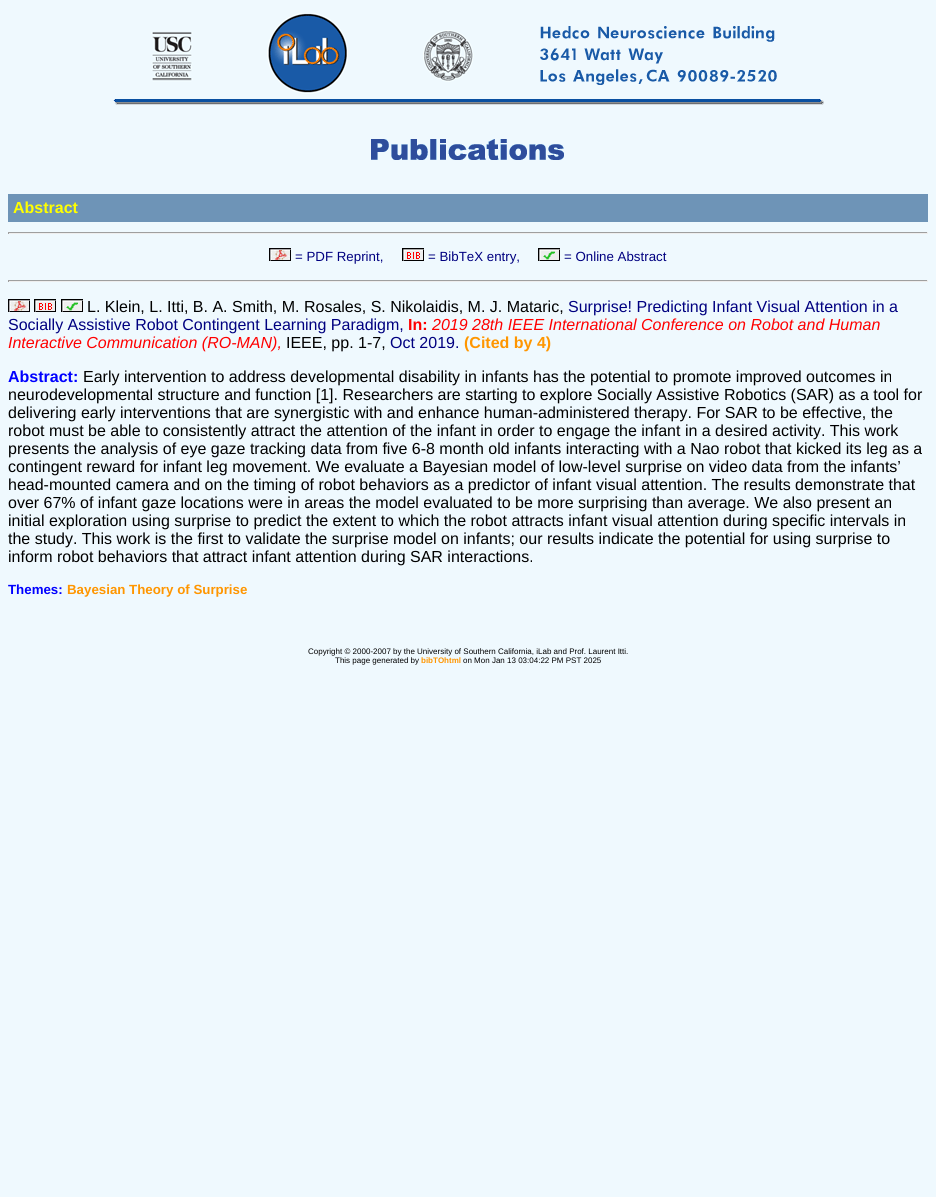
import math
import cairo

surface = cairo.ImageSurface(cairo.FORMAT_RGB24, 936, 1197)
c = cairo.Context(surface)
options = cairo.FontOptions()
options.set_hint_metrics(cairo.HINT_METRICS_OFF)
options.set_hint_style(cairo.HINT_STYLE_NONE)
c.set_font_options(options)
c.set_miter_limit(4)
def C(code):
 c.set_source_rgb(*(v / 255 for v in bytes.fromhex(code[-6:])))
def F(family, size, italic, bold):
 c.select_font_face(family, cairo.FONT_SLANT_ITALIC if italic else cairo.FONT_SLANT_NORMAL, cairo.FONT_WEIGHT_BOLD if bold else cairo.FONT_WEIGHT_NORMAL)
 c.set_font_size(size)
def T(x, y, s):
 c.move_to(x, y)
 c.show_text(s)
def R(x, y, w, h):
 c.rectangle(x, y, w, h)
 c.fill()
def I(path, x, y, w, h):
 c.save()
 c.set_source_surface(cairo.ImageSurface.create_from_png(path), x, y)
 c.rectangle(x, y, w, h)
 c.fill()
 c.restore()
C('eff9fe')
c.paint()
I('1.png',113,13,711,92)
I('2.png',371,139,193,21)
C('6e94b7')
R(8,194,920,28)
F('Liberation Sans',16,0,1)
C('ffff00')
T(13,213,'Abstract')
C('9f9f9f')
R(8,232,920,1)
C('eeeeee')
R(927,232,1,2)
R(8,233,920,1)
C('9f9f9f')
R(8,232,1,2)
I('3.png',269,248,22,13)
F('Liberation Sans',13.3,0,0)
C('000080')
T(295,261,'= PDF Reprint,')
I('4.png',402,248,22,13)
T(428,261,'= BibTeX entry,')
I('5.png',538,248,22,13)
T(564,261,'= Online Abstract')
C('9f9f9f')
R(8,280,920,1)
C('eeeeee')
R(927,280,1,2)
R(8,281,920,1)
C('9f9f9f')
R(8,280,1,2)
I('3.png',8,299,22,13)
I('4.png',34,299,22,13)
I('5.png',61,299,22,13)
F('Liberation Sans',16,0,0)
C('000000')
T(87,312,'L. Klein, L. Itti, B. A. Smith, M. Rosales, S. Nikolaidis, M. J. Mataric,')
C('000080')
T(568,312,'Surprise! Predicting Infant Visual Attention in a')
T(8,330,'Socially Assistive Robot Contingent Learning Paradigm,')
F('Liberation Sans',16,0,1)
C('ff0000')
T(408,330,'In:')
F('Liberation Sans',16,1,0)
T(432,330,'2019 28th IEEE International Conference on Robot and Human')
T(8,348,'Interactive Communication (RO-MAN),')
F('Liberation Sans',16,0,0)
C('000000')
T(286,348,'IEEE, pp. 1-7,')
C('000080')
T(390,348,'Oct 2019.')
F('Liberation Sans',16,0,1)
C('ff9600')
T(464,348,'(Cited by 4)')
C('0000ff')
T(8,382,'Abstract:')
F('Liberation Sans',16,0,0)
C('000000')
T(83,382,'Early intervention to address developmental disability in infants has the potential to promote improved outcomes in')
T(8,400,'neurodevelopmental structure and function [1]. Researchers are starting to explore Socially Assistive Robotics (SAR) as a tool for')
T(8,418,'delivering early interventions that are synergistic with and enhance human-administered therapy. For SAR to be effective, the')
T(8,436,'robot must be able to consistently attract the attention of the infant in order to engage the infant in a desired activity. This work')
T(8,454,'presents the analysis of eye gaze tracking data from five 6-8 month old infants interacting with a Nao robot that kicked its leg as a')
T(8,472,'contingent reward for infant leg movement. We evaluate a Bayesian model of low-level surprise on video data from the infants’')
T(8,490,'head-mounted camera and on the timing of robot behaviors as a predictor of infant visual attention. The results demonstrate that')
T(8,508,'over 67% of infant gaze locations were in areas the model evaluated to be more surprising than average. We also present an')
T(8,526,'initial exploration using surprise to predict the extent to which the robot attracts infant visual attention during specific intervals in')
T(8,544,'the study. This work is the first to validate the surprise model on infants; our results indicate the potential for using surprise to')
T(8,562,'inform robot behaviors that attract infant attention during SAR interactions.')
F('Liberation Sans',13.3,0,1)
C('0000ff')
T(8,594,'Themes:')
C('ff9600')
T(67,594,'Bayesian Theory of Surprise')
F('Liberation Sans',8,0,0)
C('000000')
T(308,654,'Copyright © 2000-2007 by the University of Southern California, iLab and Prof. Laurent Itti.')
T(335,663,'This page generated by')
F('Liberation Sans',8,0,1)
C('ff9600')
T(421,663,'bibTOhtml')
F('Liberation Sans',8,0,0)
C('000000')
T(463,663,'on Mon Jan 13 03:04:22 PM PST 2025')
surface.write_to_png('o.png')
